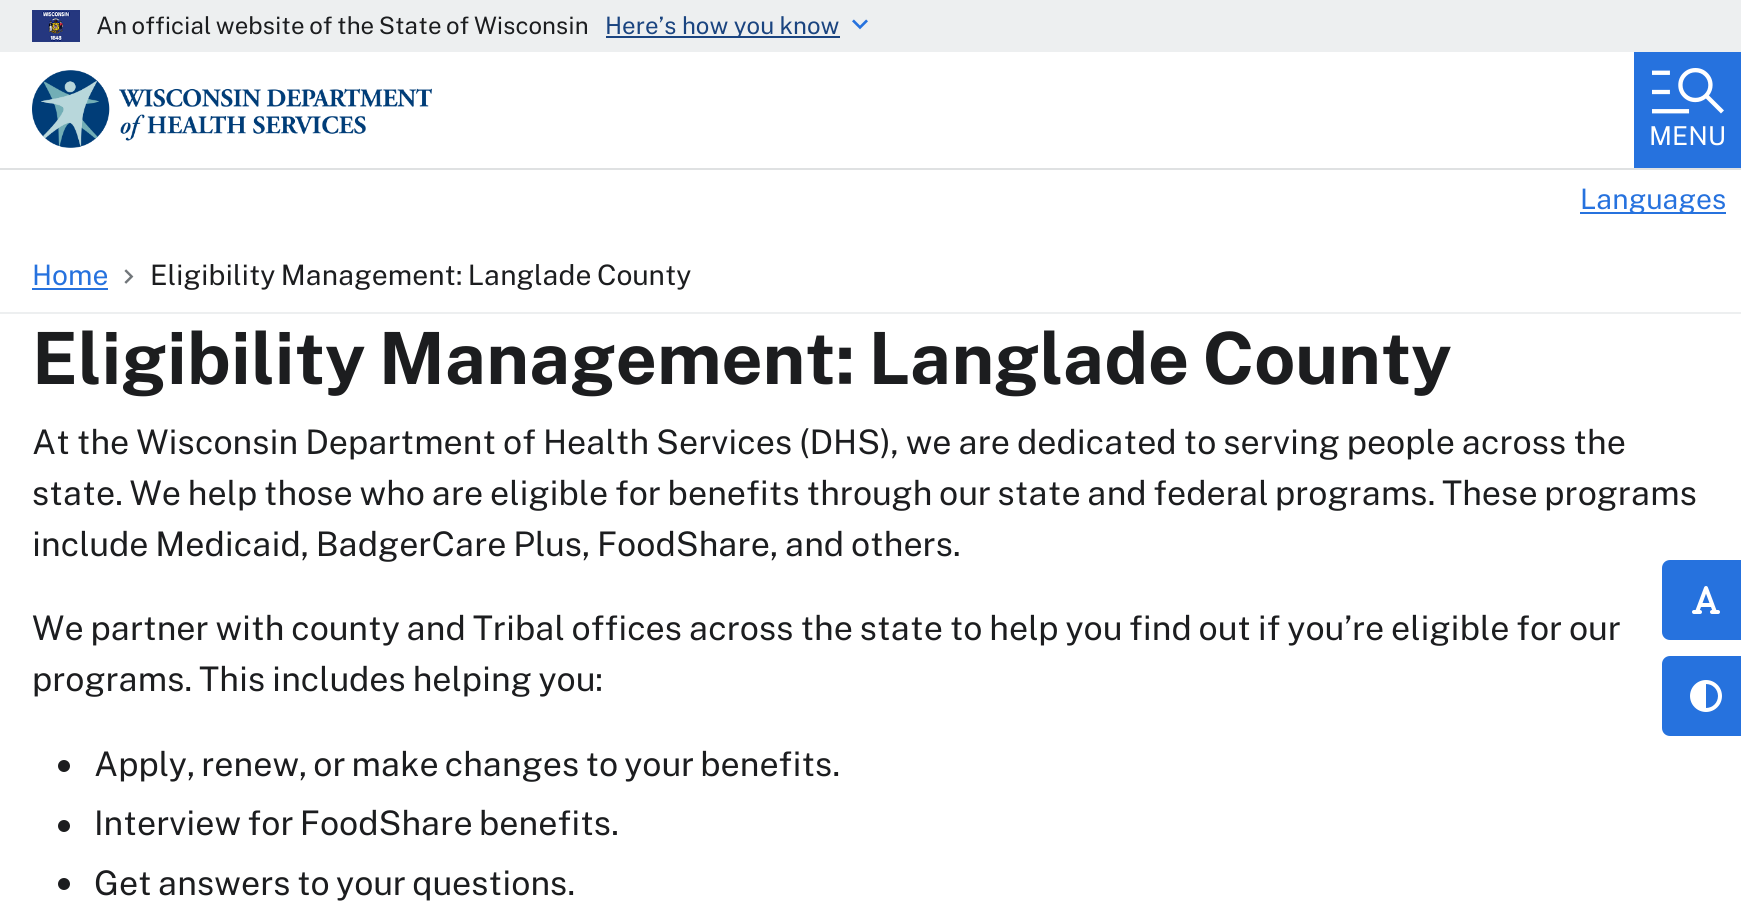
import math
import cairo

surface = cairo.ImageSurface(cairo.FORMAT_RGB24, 1741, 919)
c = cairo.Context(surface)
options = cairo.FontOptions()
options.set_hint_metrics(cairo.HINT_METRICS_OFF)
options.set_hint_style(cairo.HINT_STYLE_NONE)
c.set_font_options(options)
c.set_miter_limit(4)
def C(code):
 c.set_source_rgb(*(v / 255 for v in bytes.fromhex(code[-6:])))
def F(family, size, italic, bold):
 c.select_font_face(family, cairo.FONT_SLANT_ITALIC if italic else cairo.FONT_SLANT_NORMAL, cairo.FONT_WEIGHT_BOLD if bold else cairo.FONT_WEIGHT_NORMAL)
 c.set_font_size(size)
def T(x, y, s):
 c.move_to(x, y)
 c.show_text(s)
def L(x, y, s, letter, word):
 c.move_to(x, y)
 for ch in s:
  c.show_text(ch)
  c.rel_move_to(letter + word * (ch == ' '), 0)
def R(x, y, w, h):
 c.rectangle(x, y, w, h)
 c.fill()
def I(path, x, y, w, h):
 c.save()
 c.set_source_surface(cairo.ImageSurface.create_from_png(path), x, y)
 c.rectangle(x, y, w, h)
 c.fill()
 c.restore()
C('ffffff')
c.paint()
C('edeff0')
R(0,0,1741,52)
I('1.png',32,10,48,32)
F('Public Sans',24,0,0)
C('1c1d1f')
L(96,34,'An official website of the State of Wisconsin',0,-1)
C('1a4480')
R(606,36,234,2)
T(605,34,'Here’s how you know')
I('2.png',852,19,16,11)
C('dfe1e2')
R(0,168,1741,2)
I('3.png',32,70,400,78)
C('2672de')
R(1634,52,107,116)
I('4.png',1652,68,72,46)
F('Public Sans',26,0,0)
C('ffffff')
T(1649,145,'MENU')
C('2672de')
R(1580,212,146,2)
F('Public Sans',28.2,0,0)
T(1580,209,'Languages')
C('edeff0')
R(0,312,1741,2)
C('2672de')
T(32,285,'Home')
R(32,288,76,2)
I('5.png',124,269,10,15)
C('1c1d1f')
L(150,285,'Eligibility Management: Langlade County',0,-1)
F('Public Sans',72,0,1)
L(32,384,'Eligibility Management: Langlade County',0,-2)
F('Public Sans',33.9,0,0)
L(32,454,'At the Wisconsin Department of Health Services (DHS), we are dedicated to serving people across the',0,-.9)
L(32,505,'state. We help those who are eligible for benefits through our state and federal programs. These programs',0,-1.1)
L(32,556,'include Medicaid, BadgerCare Plus, FoodShare, and others.',0,-1)
L(32,640,'We partner with county and Tribal offices across the state to help you find out if you’re eligible for our',0,-1)
L(32,691,'programs. This includes helping you:',0,-1)
c.new_path()
c.arc(64,766,6,0,2 * math.pi)
c.fill()
L(94,776,'Apply, renew, or make changes to your benefits.',0,-1.75)
c.new_path()
c.arc(64,826,6,0,2 * math.pi)
c.fill()
L(94,835,'Interview for FoodShare benefits.',0,-1.5)
c.new_path()
c.arc(64,884,6,0,2 * math.pi)
c.fill()
L(94,895,'Get answers to your questions.',0,-1.5)
C('2672de')
c.new_path()
c.move_to(1670,560)
c.line_to(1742,560)
c.line_to(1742,640)
c.line_to(1670,640)
c.curve_to(1665.5,640,1662,636.5,1662,632)
c.line_to(1662,568)
c.curve_to(1662,563.5,1665.5,560,1670,560)
c.close_path()
c.fill()
I('6.png',1692,586,28,28)
c.new_path()
c.move_to(1670,656)
c.line_to(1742,656)
c.line_to(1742,736)
c.line_to(1670,736)
c.curve_to(1665.5,736,1662,732.5,1662,728)
c.line_to(1662,664)
c.curve_to(1662,659.5,1665.5,656,1670,656)
c.close_path()
c.fill()
I('7.png',1690,680,32,32)
surface.write_to_png('o.png')
